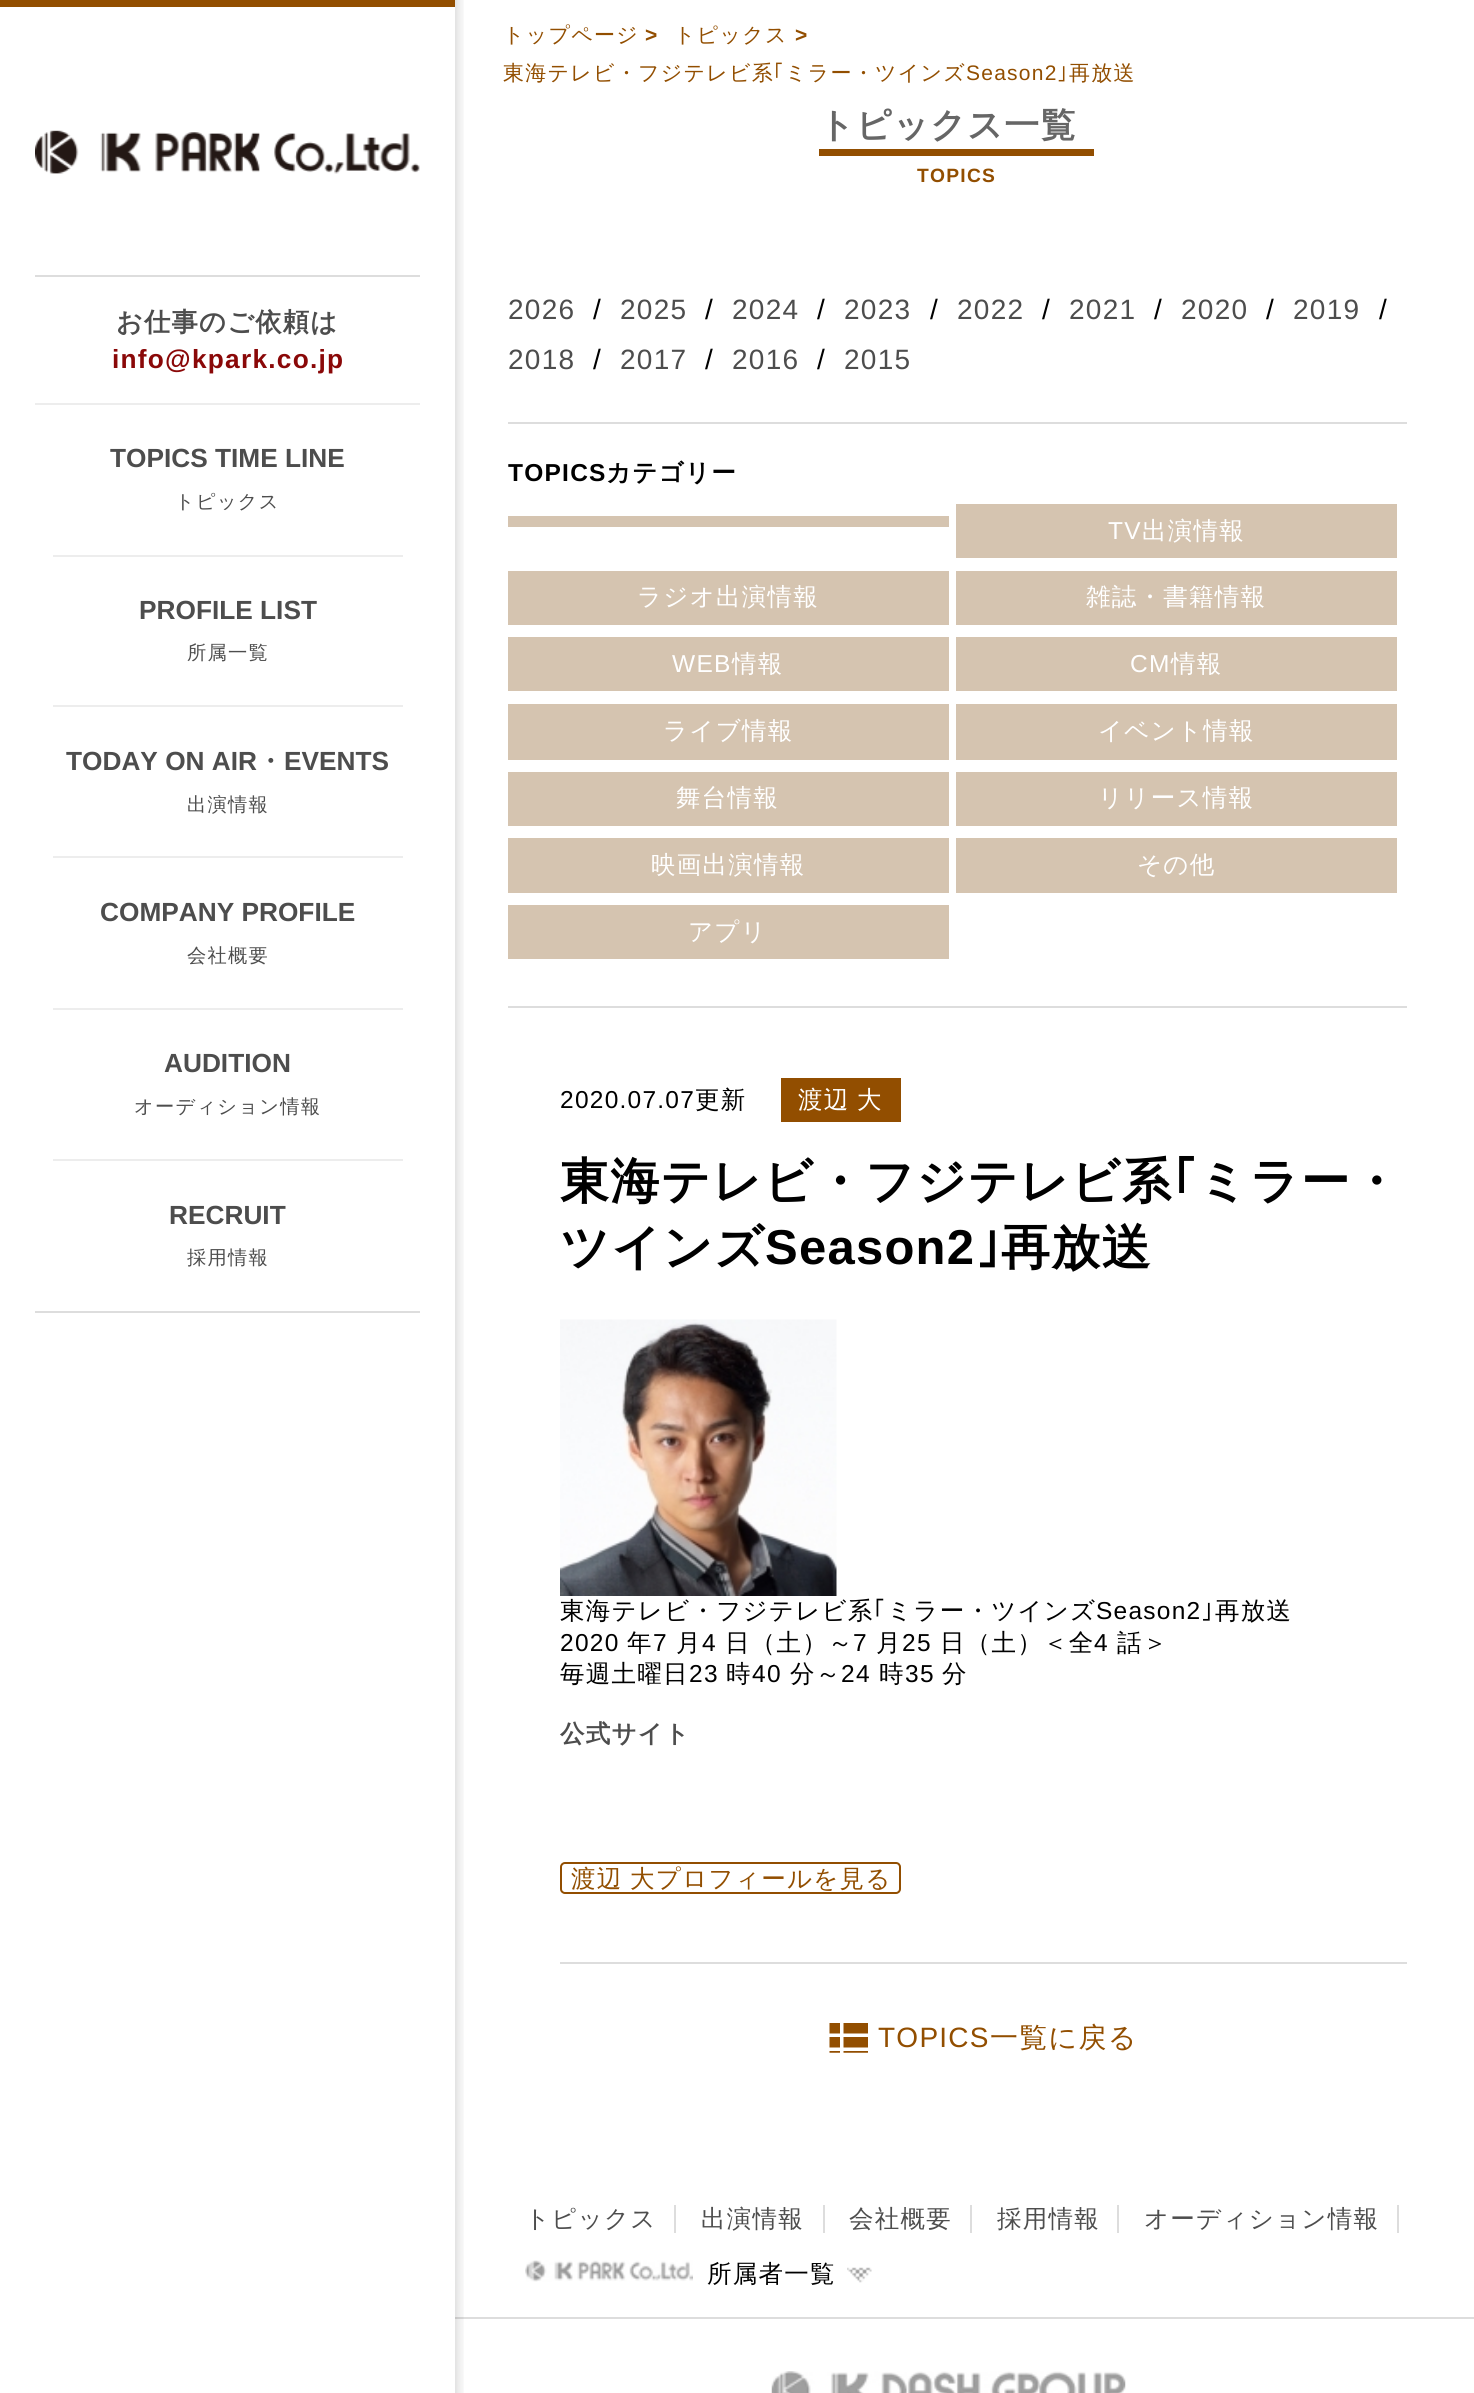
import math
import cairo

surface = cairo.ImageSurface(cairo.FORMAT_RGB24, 1474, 2393)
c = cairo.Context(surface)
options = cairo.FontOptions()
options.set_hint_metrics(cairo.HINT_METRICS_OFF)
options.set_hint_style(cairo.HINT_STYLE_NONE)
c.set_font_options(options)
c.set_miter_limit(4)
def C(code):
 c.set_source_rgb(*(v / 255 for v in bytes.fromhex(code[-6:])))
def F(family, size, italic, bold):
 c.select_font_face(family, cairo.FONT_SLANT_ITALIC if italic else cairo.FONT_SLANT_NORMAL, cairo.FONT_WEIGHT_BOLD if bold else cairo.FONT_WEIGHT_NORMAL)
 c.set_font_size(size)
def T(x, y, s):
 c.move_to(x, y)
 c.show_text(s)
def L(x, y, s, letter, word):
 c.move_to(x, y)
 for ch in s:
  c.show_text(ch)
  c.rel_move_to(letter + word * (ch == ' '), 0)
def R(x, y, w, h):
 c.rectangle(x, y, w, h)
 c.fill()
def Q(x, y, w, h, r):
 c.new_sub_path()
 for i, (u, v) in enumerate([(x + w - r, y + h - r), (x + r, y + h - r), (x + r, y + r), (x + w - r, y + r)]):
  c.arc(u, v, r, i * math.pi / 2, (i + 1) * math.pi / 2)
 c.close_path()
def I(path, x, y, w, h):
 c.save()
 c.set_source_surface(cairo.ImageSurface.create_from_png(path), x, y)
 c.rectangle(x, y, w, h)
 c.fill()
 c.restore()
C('ffffff')
c.paint()
C('dddddd')
R(455,2317,1019,2)
I('1.png',455,0,9,2393)
C('924e00')
R(0,0,455,7)
I('2.png',35,130,385,44)
C('dddddd')
R(35,275,385,2)
R(35,1311,385,2)
C('ededed')
R(35,403,385,2)
F('WenQuanYi Zen Hei',26.25,0,1)
C('4d4d4d')
L(116,331,'お仕事のご依頼は',1.25,0)
F('Liberation Sans',26.25,0,1)
C('8a0808')
L(112,368,'info@kpark.co.jp',1.25,0)
C('ededed')
R(53,555,350,2)
C('4d4d4d')
T(110,467,'TOPICS TIME LINE')
F('WenQuanYi Zen Hei Medium',19.25,0,0)
L(175,508,'トピックス',1.25,0)
C('ededed')
R(53,705,350,2)
F('Liberation Sans',26.25,0,1)
C('4d4d4d')
T(139,619,'PROFILE LIST')
F('WenQuanYi Zen Hei Medium',19.25,0,0)
L(187,659,'所属一覧',1.25,0)
C('ededed')
R(53,856,350,2)
F('Liberation Sans',26.25,0,1)
C('4d4d4d')
T(66,770,'TODAY ON AIR')
F('WenQuanYi Zen Hei',26.25,0,1)
T(257,770,'・')
F('Liberation Sans',26.25,0,1)
T(284,770,'EVENTS')
F('WenQuanYi Zen Hei Medium',19.25,0,0)
L(187,811,'出演情報',1.25,0)
C('ededed')
R(53,1008,350,2)
F('Liberation Sans',26.25,0,1)
C('4d4d4d')
T(100,921,'COMPANY PROFILE')
F('WenQuanYi Zen Hei Medium',19.25,0,0)
L(187,962,'会社概要',1.25,0)
C('ededed')
R(53,1159,350,2)
F('Liberation Sans',26.25,0,1)
C('4d4d4d')
T(164,1072,'AUDITION')
F('WenQuanYi Zen Hei Medium',19.25,0,0)
L(134,1113,'オーディション情報',1.25,0)
F('Liberation Sans',26.25,0,1)
T(169,1224,'RECRUIT')
F('WenQuanYi Zen Hei Medium',19.25,0,0)
L(187,1264,'採用情報',1.25,0)
F('WenQuanYi Zen Hei Medium',21,0,0)
C('924e00')
L(503,42,'トップページ',1.25,0)
F('Liberation Sans',21,0,1)
L(645,42,'>',1.25,0)
F('WenQuanYi Zen Hei Medium',21,0,0)
L(674,42,'トピックス',1.25,0)
F('Liberation Sans',21,0,1)
L(795,42,'>',1.25,0)
F('WenQuanYi Zen Hei Medium',21,0,0)
L(503,80,'東海テレビ・フジテレビ系',1.25,0)
F('IPAPGothic',21,0,0)
L(773,80,'｢',1.25,0)
F('WenQuanYi Zen Hei Medium',21,0,0)
L(785,80,'ミラー・ツインズ',1.25,0)
F('Liberation Sans',21,0,0)
L(966,80,'Season2',1.25,0)
F('IPAPGothic',21,0,0)
L(1057,80,'｣',1.25,0)
F('WenQuanYi Zen Hei Medium',21,0,0)
L(1069,80,'再放送',1.25,0)
R(819,149,275,7)
F('WenQuanYi Zen Hei',35,0,1)
C('666666')
L(819,137,'トピックス一覧',1.25,0)
F('Liberation Sans',19.25,0,1)
C('924e00')
L(917,182,'TOPICS',1.25,0)
F('Liberation Sans',28,0,0)
C('4d4d4d')
L(508,319,'2026',1.25,0)
C('000000')
L(593,319,'/',1.25,0)
C('4d4d4d')
L(620,319,'2025',1.25,0)
C('000000')
L(705,319,'/',1.25,0)
C('4d4d4d')
L(732,319,'2024',1.25,0)
C('000000')
L(817,319,'/',1.25,0)
C('4d4d4d')
L(844,319,'2023',1.25,0)
C('000000')
L(930,319,'/',1.25,0)
C('4d4d4d')
L(957,319,'2022',1.25,0)
C('000000')
L(1042,319,'/',1.25,0)
C('4d4d4d')
L(1069,319,'2021',1.25,0)
C('000000')
L(1154,319,'/',1.25,0)
C('4d4d4d')
L(1181,319,'2020',1.25,0)
C('000000')
L(1266,319,'/',1.25,0)
C('4d4d4d')
L(1293,319,'2019',1.25,0)
C('000000')
L(1379,319,'/',1.25,0)
C('4d4d4d')
L(508,369,'2018',1.25,0)
C('000000')
L(593,369,'/',1.25,0)
C('4d4d4d')
L(620,369,'2017',1.25,0)
C('000000')
L(705,369,'/',1.25,0)
C('4d4d4d')
L(732,369,'2016',1.25,0)
C('000000')
L(817,369,'/',1.25,0)
C('4d4d4d')
L(844,369,'2015',1.25,0)
C('dddddd')
R(508,422,899,2)
R(508,1006,899,2)
F('Liberation Sans',24.5,0,1)
C('000000')
L(508,481,'TOPICS',1.25,0)
F('WenQuanYi Zen Hei',24.5,0,1)
L(606,481,'カテゴリー',1.25,0)
C('d5c4b0')
R(508,516,441,11)
R(956,504,441,54)
F('Liberation Sans',24.5,0,0)
C('ffffff')
L(1108,539,'TV',1.25,0)
F('WenQuanYi Zen Hei Medium',24.5,0,0)
L(1142,539,'出演情報',1.25,0)
C('d5c4b0')
R(508,571,441,54)
C('ffffff')
L(637,605,'ラジオ出演情報',1.25,0)
C('d5c4b0')
R(956,571,441,54)
C('ffffff')
L(1086,605,'雑誌・書籍情報',1.25,0)
C('d5c4b0')
R(508,637,441,54)
F('Liberation Sans',24.5,0,0)
C('ffffff')
L(672,672,'WEB',1.25,0)
F('WenQuanYi Zen Hei Medium',24.5,0,0)
L(732,672,'情報',1.25,0)
C('d5c4b0')
R(956,637,441,54)
F('Liberation Sans',24.5,0,0)
C('ffffff')
L(1130,672,'CM',1.25,0)
F('WenQuanYi Zen Hei Medium',24.5,0,0)
L(1171,672,'情報',1.25,0)
C('d5c4b0')
R(508,704,441,56)
C('ffffff')
L(663,739,'ライブ情報',1.25,0)
C('d5c4b0')
R(956,704,441,56)
C('ffffff')
L(1098,739,'イベント情報',1.25,0)
C('d5c4b0')
R(508,772,441,54)
C('ffffff')
L(676,806,'舞台情報',1.25,0)
C('d5c4b0')
R(956,772,441,54)
C('ffffff')
L(1098,806,'リリース情報',1.25,0)
C('d5c4b0')
R(508,838,441,55)
C('ffffff')
L(651,873,'映画出演情報',1.25,0)
C('d5c4b0')
R(956,838,441,55)
C('ffffff')
L(1137,873,'その他',1.25,0)
C('d5c4b0')
R(508,905,441,54)
C('ffffff')
L(688,940,'アプリ',1.25,0)
F('Liberation Sans',24.5,0,0)
C('000000')
L(560,1108,'2020.07.07',1.25,0)
F('WenQuanYi Zen Hei Medium',24.5,0,0)
L(695,1108,'更新',1.25,0)
C('924e00')
R(781,1078,120,44)
C('ffffff')
L(798,1108,'渡辺 大',1.25,-1)
F('WenQuanYi Zen Hei',49,0,1)
C('000000')
L(560,1198,'東海テレビ・フジテレビ系',1.25,0)
F('IPAPGothic',49,0,1)
L(1172,1198,'｢',1.25,0)
F('WenQuanYi Zen Hei',49,0,1)
L(1198,1198,'ミラー・',1.25,0)
L(560,1264,'ツインズ',1.25,0)
F('Liberation Sans',49,0,1)
L(765,1264,'Season2',1.25,0)
F('IPAPGothic',49,0,1)
L(976,1264,'｣',1.25,0)
F('WenQuanYi Zen Hei',49,0,1)
L(1001,1264,'再放送',1.25,0)
C('dddddd')
R(560,1962,847,2)
I('3.png',560,1319,277,277)
F('WenQuanYi Zen Hei Medium',24.5,0,0)
C('000000')
L(560,1619,'東海テレビ・フジテレビ系',1.25,0)
F('IPAPGothic',24.5,0,0)
L(873,1619,'｢',1.25,0)
F('WenQuanYi Zen Hei Medium',24.5,0,0)
L(887,1619,'ミラー・ツインズ',1.25,0)
F('Liberation Sans',24.5,0,0)
L(1096,1619,'Season2',1.25,0)
F('IPAPGothic',24.5,0,0)
L(1201,1619,'｣',1.25,0)
F('WenQuanYi Zen Hei Medium',24.5,0,0)
L(1215,1619,'再放送',1.25,0)
F('Liberation Sans',24.5,0,0)
L(560,1651,'2020',1.25,0)
F('WenQuanYi Zen Hei Medium',24.5,0,0)
L(627,1651,'年',1.25,0)
F('Liberation Sans',24.5,0,0)
L(653,1651,'7',1.25,0)
F('WenQuanYi Zen Hei Medium',24.5,0,0)
L(676,1651,'月',1.25,0)
F('Liberation Sans',24.5,0,0)
L(702,1651,'4',1.25,0)
F('WenQuanYi Zen Hei Medium',24.5,0,0)
L(725,1651,'日（土）～',1.25,0)
F('Liberation Sans',24.5,0,0)
L(853,1651,'7',1.25,0)
F('WenQuanYi Zen Hei Medium',24.5,0,0)
L(876,1651,'月',1.25,0)
F('Liberation Sans',24.5,0,0)
L(902,1651,'25',1.25,0)
F('WenQuanYi Zen Hei Medium',24.5,0,0)
L(940,1651,'日（土）＜全',1.25,0)
F('Liberation Sans',24.5,0,0)
L(1094,1651,'4',1.25,0)
F('WenQuanYi Zen Hei Medium',24.5,0,0)
L(1117,1651,'話＞',1.25,0)
L(560,1682,'毎週土曜日',1.25,0)
F('Liberation Sans',24.5,0,0)
L(689,1682,'23',1.25,0)
F('WenQuanYi Zen Hei Medium',24.5,0,0)
L(726,1682,'時',1.25,0)
F('Liberation Sans',24.5,0,0)
L(752,1682,'40',1.25,0)
F('WenQuanYi Zen Hei Medium',24.5,0,0)
L(790,1682,'分～',1.25,0)
F('Liberation Sans',24.5,0,0)
L(841,1682,'24',1.25,0)
F('WenQuanYi Zen Hei Medium',24.5,0,0)
L(879,1682,'時',1.25,0)
F('Liberation Sans',24.5,0,0)
L(905,1682,'35',1.25,0)
F('WenQuanYi Zen Hei Medium',24.5,0,0)
L(942,1682,'分',1.25,0)
F('WenQuanYi Zen Hei',24.5,0,1)
C('4d4d4d')
L(560,1742,'公式サイト',1.25,0)
Q(561,1863,339,30,4)
C('924e00')
c.stroke()
F('WenQuanYi Zen Hei Medium',24.5,0,0)
L(571,1887,'渡辺 大プロフィールを見る',1.25,-1)
I('4.png',829,2023,39,30)
F('Liberation Sans',28,0,0)
L(878,2047,'TOPICS',1.25,0)
F('WenQuanYi Zen Hei Medium',28,0,0)
L(990,2047,'一覧に戻る',1.25,0)
F('WenQuanYi Zen Hei Medium',24.5,0,0)
C('4d4d4d')
L(525,2227,'トピックス',1.25,0)
C('dddddd')
R(674,2205,2,28)
C('4d4d4d')
L(701,2227,'出演情報',1.25,0)
C('dddddd')
R(823,2205,2,28)
C('4d4d4d')
L(849,2227,'会社概要',1.25,0)
C('dddddd')
R(970,2205,2,28)
C('4d4d4d')
L(997,2227,'採用情報',1.25,0)
C('dddddd')
R(1117,2205,2,28)
C('4d4d4d')
L(1144,2227,'オーディション情報',1.25,0)
C('dddddd')
R(1397,2205,2,28)
I('5.png',847,2267,25,16)
I('6.png',525,2260,168,22)
C('000000')
L(707,2282,'所属者一覧',1.25,0)
I('7.png',771,2371,355,22)
surface.write_to_png('o.png')
